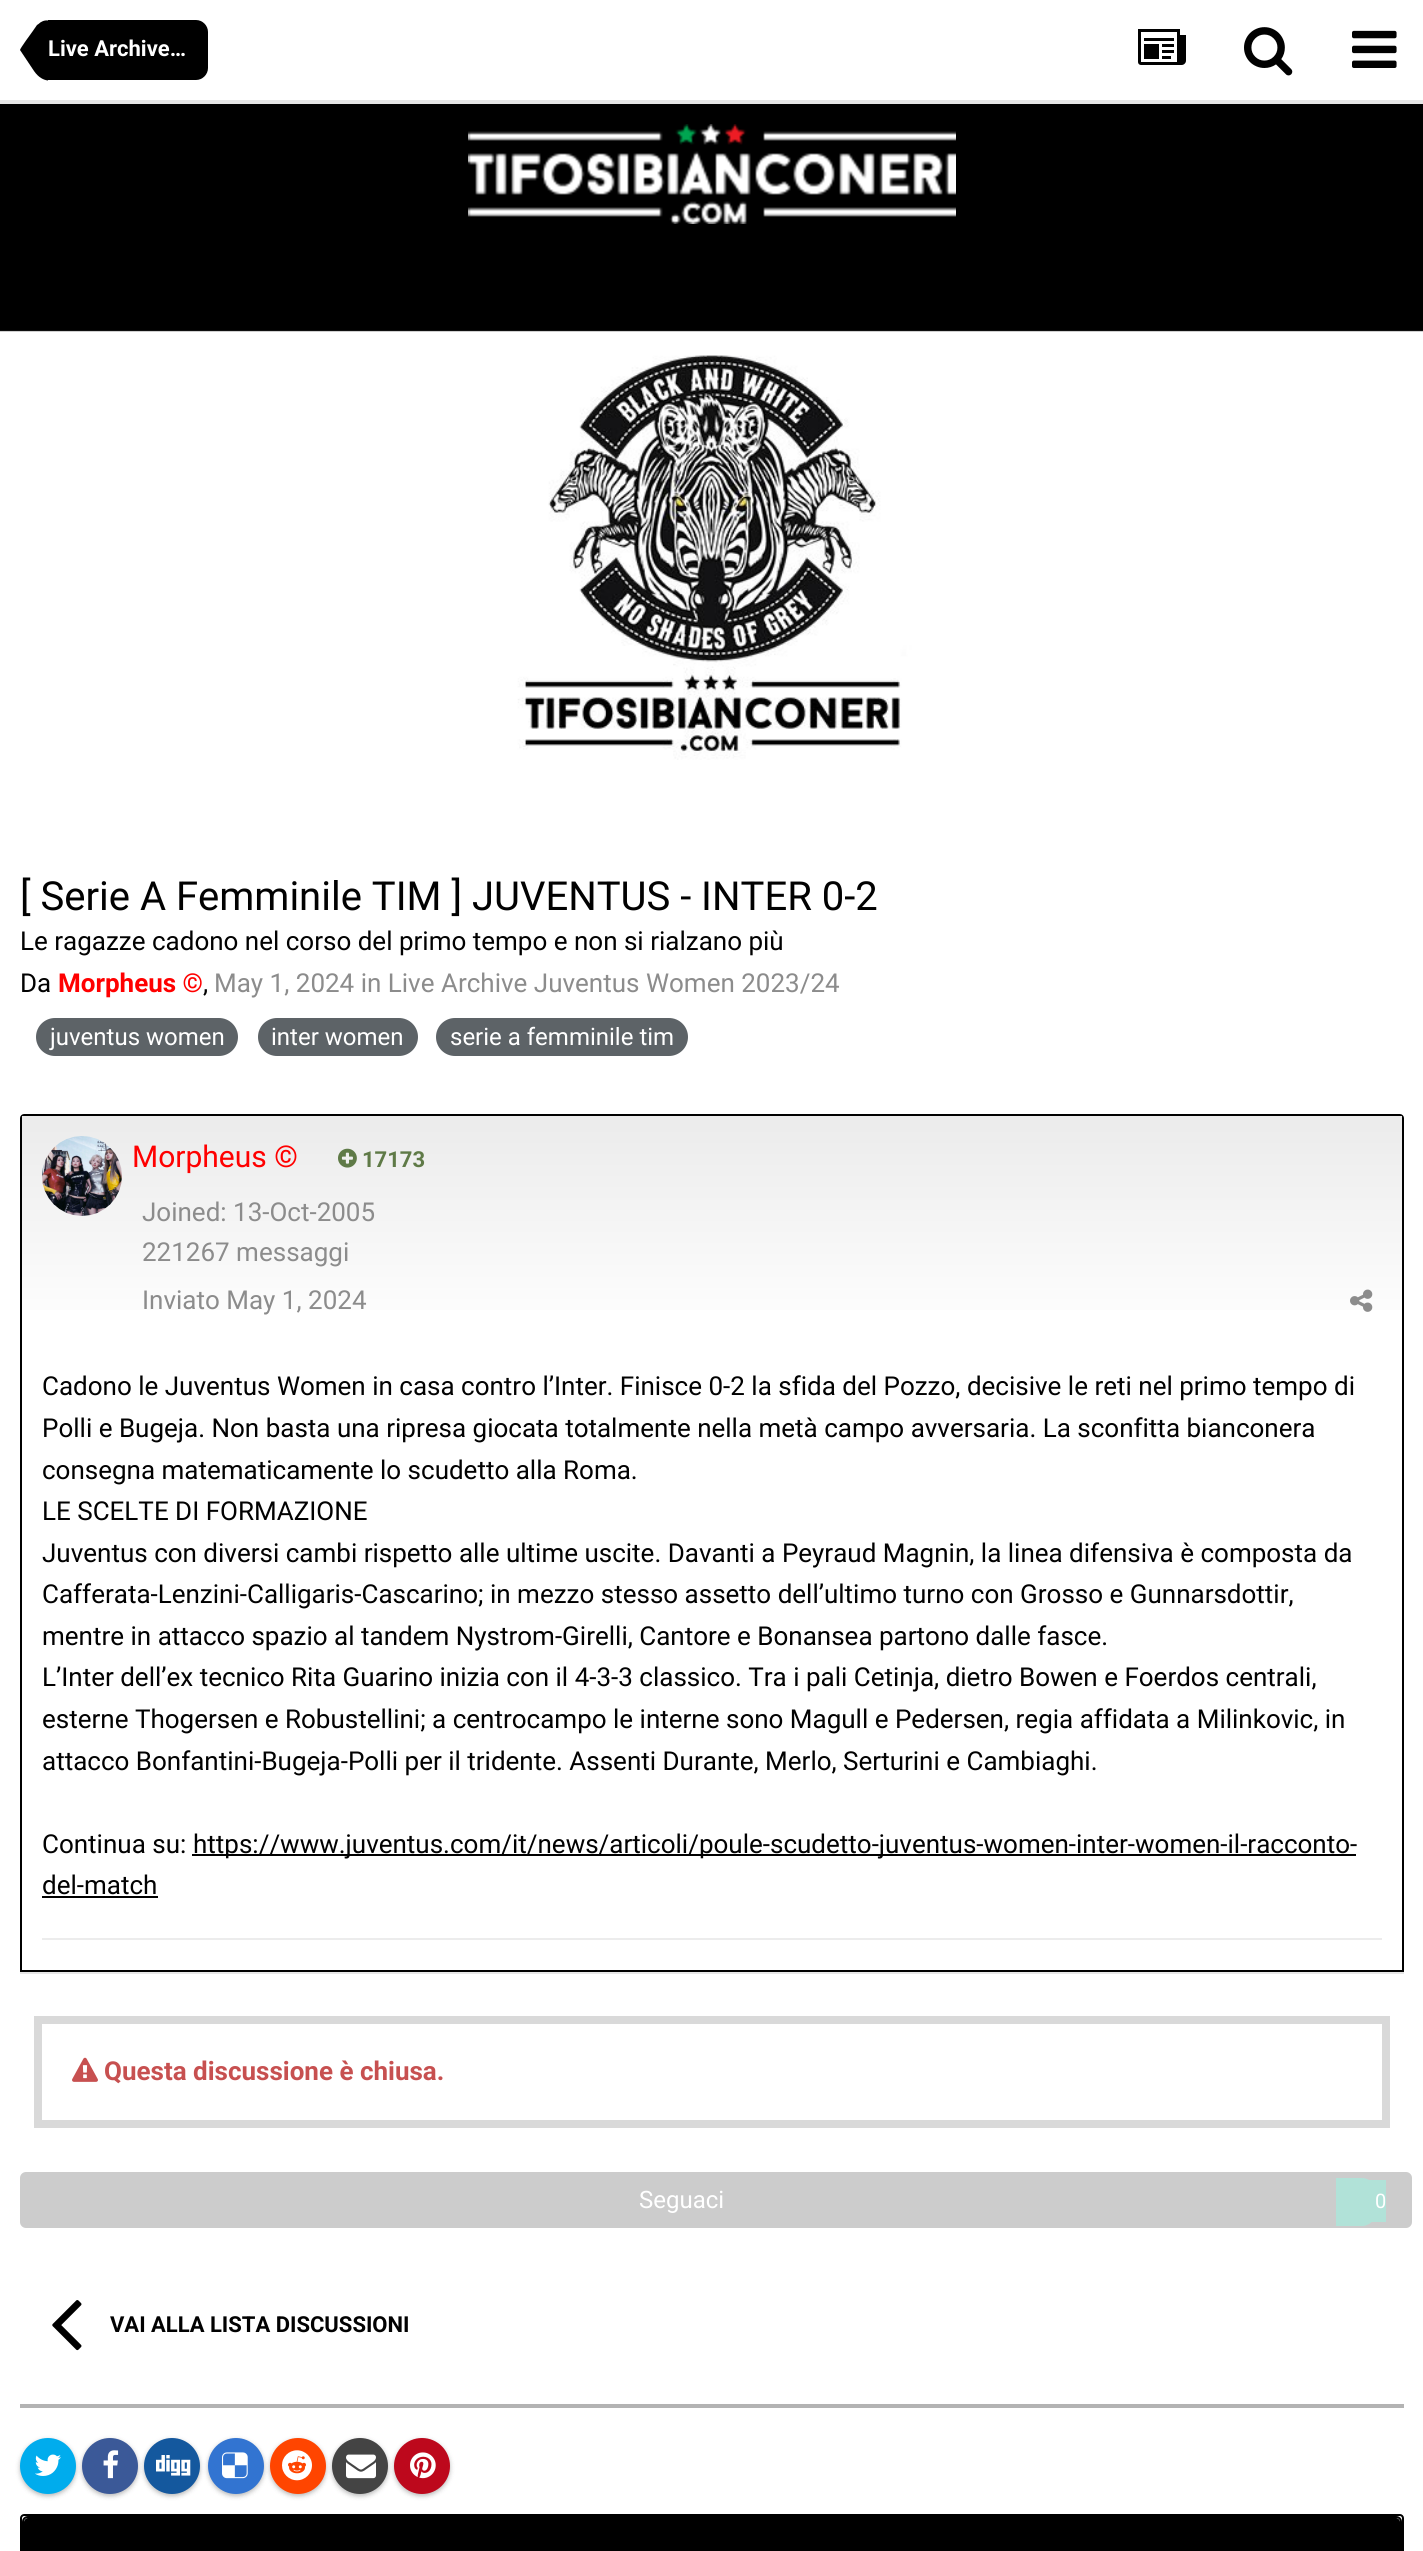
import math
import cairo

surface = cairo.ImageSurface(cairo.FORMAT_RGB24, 1423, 2551)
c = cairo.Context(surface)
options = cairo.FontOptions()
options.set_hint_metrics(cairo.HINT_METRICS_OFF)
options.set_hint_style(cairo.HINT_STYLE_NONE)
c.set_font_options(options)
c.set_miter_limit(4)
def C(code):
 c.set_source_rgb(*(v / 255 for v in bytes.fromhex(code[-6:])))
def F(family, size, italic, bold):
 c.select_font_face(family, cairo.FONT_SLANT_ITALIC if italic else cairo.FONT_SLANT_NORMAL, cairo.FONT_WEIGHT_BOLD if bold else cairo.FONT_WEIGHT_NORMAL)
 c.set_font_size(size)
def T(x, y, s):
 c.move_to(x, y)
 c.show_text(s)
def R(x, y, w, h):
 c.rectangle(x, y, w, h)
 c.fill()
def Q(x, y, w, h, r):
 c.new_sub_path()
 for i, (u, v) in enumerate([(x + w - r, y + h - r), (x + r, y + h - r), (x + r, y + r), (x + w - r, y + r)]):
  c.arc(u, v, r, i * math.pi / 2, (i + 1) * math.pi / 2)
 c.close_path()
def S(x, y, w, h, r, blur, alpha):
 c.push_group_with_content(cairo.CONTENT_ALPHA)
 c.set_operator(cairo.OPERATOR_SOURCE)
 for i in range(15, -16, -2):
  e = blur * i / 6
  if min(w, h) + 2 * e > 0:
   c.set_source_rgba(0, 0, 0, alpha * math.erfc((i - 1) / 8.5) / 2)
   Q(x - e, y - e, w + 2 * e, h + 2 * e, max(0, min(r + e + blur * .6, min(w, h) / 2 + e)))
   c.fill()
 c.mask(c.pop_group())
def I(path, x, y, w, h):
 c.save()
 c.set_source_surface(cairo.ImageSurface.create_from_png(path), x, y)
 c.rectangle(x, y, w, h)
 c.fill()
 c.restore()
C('ffffff')
c.paint()
C('e6e6e6')
R(0,100,1423,4)
C('000000')
c.new_path()
c.move_to(48,20)
c.line_to(196,20)
c.curve_to(202.5,20,208,25.5,208,32)
c.line_to(208,68)
c.curve_to(208,74.5,202.5,80,196,80)
c.line_to(48,80)
c.close_path()
c.fill()
c.new_path()
c.move_to(48,50)
c.line_to(48,80.5)
c.curve_to(43.5,80,38.5,77.5,34,71)
c.line_to(20,50)
c.close_path()
c.move_to(48,50)
c.line_to(20,50)
c.curve_to(20,48.5,31,33.5,32.5,31.5)
c.line_to(37,25)
c.line_to(38.5,24)
c.curve_to(41,21.5,44.5,20,48,20.5)
c.close_path()
c.fill()
F('Roboto',22,0,1)
C('ffffff')
T(48,56,'Live Archive…')
I('1.png',1138,29,48,36)
I('2.png',1244,27,49,49)
I('3.png',1352,30,45,38)
C('000000')
R(0,104,1423,148)
I('4.png',468,124,488,100)
I('5.png',0,252,1423,508)
F('Roboto',40,0,0)
C('010101')
T(20,910,'[ Serie A Femminile TIM ] JUVENTUS - INTER 0-2')
F('Roboto',26,0,0)
T(20,950,'Le ragazze cadono nel corso del primo tempo e non si rialzano più')
T(20,992,'Da')
F('Roboto',26,0,1)
C('ff0000')
T(58,992,'Morpheus ©')
F('Roboto',26,0,0)
C('010101')
T(203,992,',')
C('8c8c8c')
T(214,992,'May 1, 2024 in Live Archive Juventus Women 2023/24')
C('5d6367')
Q(36,1018,202,38,19)
c.fill()
F('Roboto',24,0,0)
C('ffffff')
T(50,1045,'juventus women')
C('5d6367')
Q(258,1018,160,38,19)
c.fill()
C('ffffff')
T(271,1045,'inter women')
C('5d6367')
Q(436,1018,252,38,19)
c.fill()
C('ffffff')
T(450,1045,'serie a femminile tim')
C('e6e6e6')
R(20,1972,1384,2)
c.new_path()
c.move_to(24,1115)
c.line_to(1400,1115)
c.curve_to(1401.5,1115,1403,1116.5,1403,1118)
c.line_to(1403,1971)
c.line_to(21,1971)
c.line_to(21,1118)
c.curve_to(21,1116.5,22.5,1115,24,1115)
c.close_path()
C('000000')
c.stroke()
gradient = cairo.LinearGradient(712,1338,712,1116)
gradient.add_color_stop_rgba(0,1,1,1,1)
gradient.add_color_stop_rgba(1,0.922,0.922,0.922,1)
c.set_source(gradient)
R(22,1116,1380,194)
I('6.png',42,1136,80,80)
F('Roboto',30,0,0)
C('ff0000')
T(132,1167,'Morpheus ©')
I('7.png',338,1148,19,20)
F('Roboto',22,0,1)
C('5f7a47')
T(362,1167,'17173')
F('Roboto',26,0,0)
C('8c8c8c')
T(142,1221,'Joined: 13-Oct-2005')
T(142,1261,'221267 messaggi')
T(142,1309,'Inviato May 1, 2024')
I('8.png',1350,1289,23,23)
C('010101')
T(42,1395,'Cadono le Juventus Women in casa contro l’Inter. Finisce 0-2 la sfida del Pozzo, decisive le reti nel primo tempo di')
T(42,1437,'Polli e Bugeja. Non basta una ripresa giocata totalmente nella metà campo avversaria. La sconfitta bianconera')
T(42,1479,'consegna matematicamente lo scudetto alla Roma.')
T(42,1520,'LE SCELTE DI FORMAZIONE')
T(42,1562,'Juventus con diversi cambi rispetto alle ultime uscite. Davanti a Peyraud Magnin, la linea difensiva è composta da')
T(42,1603,'Cafferata-Lenzini-Calligaris-Cascarino; in mezzo stesso assetto dell’ultimo turno con Grosso e Gunnarsdottir,')
T(42,1645,'mentre in attacco spazio al tandem Nystrom-Girelli, Cantore e Bonansea partono dalle fasce.')
T(42,1686,'L’Inter dell’ex tecnico Rita Guarino inizia con il 4-3-3 classico. Tra i pali Cetinja, dietro Bowen e Foerdos centrali,')
T(42,1728,'esterne Thogersen e Robustellini; a centrocampo le interne sono Magull e Pedersen, regia affidata a Milinkovic, in')
T(42,1770,'attacco Bonfantini-Bugeja-Polli per il tridente. Assenti Durante, Merlo, Serturini e Cambiaghi.')
T(42,1853,'Continua su:')
C('000000')
R(192,1854,1164,2)
C('010101')
T(193,1853,'https://www.juventus.com/it/news/articoli/poule-scudetto-juventus-women-inter-women-il-racconto-')
T(42,1894,'del-match')
C('000000')
R(42,1896,116,2)
C('ececec')
R(42,1938,1340,2)
C('d9d9d9')
R(34,2016,1356,112)
C('ffffff')
R(42,2024,1340,96)
I('9.png',72,2057,26,25)
F('Roboto',26,0,1)
C('c75050')
T(104,2080,'Questa discussione è chiusa.')
C('cccccc')
Q(20,2172,1392,56,6)
c.fill()
F('Roboto',24,0,0)
C('ffffff')
T(639,2208,'Seguaci')
C('b1e2d8')
R(1369,2180,17,42)
c.new_path()
c.move_to(1336,2178)
c.line_to(1362,2178)
c.curve_to(1369.5,2178,1376,2184.5,1376,2192)
c.line_to(1376,2212)
c.curve_to(1376,2219.5,1369.5,2226,1362,2226)
c.line_to(1336,2226)
c.close_path()
c.fill()
F('Roboto',20,0,0)
C('ffffff')
T(1375,2208,'0')
I('10.png',52,2300,30,51)
F('Roboto',22,0,1)
C('010101')
T(110,2332,'VAI ALLA LISTA DISCUSSIONI')
C('b3b3b3')
R(20,2404,1384,4)
C('000000')
S(20,2440,56,56,28,2,.18)
S(20,2440,56,56,28,3,.1)
C('00aced')
c.arc(48,2466,28,0,2 * math.pi)
c.fill()
I('11.png',35,2454,26,22)
C('000000')
S(82,2440,56,56,28,2,.18)
S(82,2440,56,56,28,3,.1)
C('3b5998')
c.arc(110,2466,28,0,2 * math.pi)
c.fill()
I('12.png',103,2450,16,29)
C('000000')
S(144,2440,56,56,28,2,.18)
S(144,2440,56,56,28,3,.1)
C('14589e')
c.arc(172,2466,28,0,2 * math.pi)
c.fill()
I('13.png',156,2455,35,21)
C('000000')
S(208,2440,56,56,28,2,.18)
S(208,2440,56,56,28,3,.1)
C('3274d1')
c.arc(236,2466,28,0,2 * math.pi)
c.fill()
I('14.png',222,2452,26,27)
C('000000')
S(270,2440,56,56,28,2,.18)
S(270,2440,56,56,28,3,.1)
C('ff4500')
c.arc(298,2466,28,0,2 * math.pi)
c.fill()
I('15.png',282,2450,30,31)
C('000000')
S(332,2440,56,56,28,2,.18)
S(332,2440,56,56,28,3,.1)
C('444444')
c.arc(360,2466,28,0,2 * math.pi)
c.fill()
I('16.png',346,2454,30,25)
C('000000')
S(394,2440,56,56,28,2,.18)
S(394,2440,56,56,28,3,.1)
C('bd081c')
c.arc(422,2466,28,0,2 * math.pi)
c.fill()
I('17.png',410,2452,26,27)
c.new_path()
c.move_to(24,2515)
c.line_to(1400,2515)
c.curve_to(1401.5,2515,1403,2516.5,1403,2518)
c.line_to(1403,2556)
c.line_to(21,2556)
c.line_to(21,2518)
c.curve_to(21,2516.5,22.5,2515,24,2515)
c.close_path()
C('000000')
c.stroke()
c.new_path()
c.move_to(28,2518)
c.line_to(1396,2518)
c.curve_to(1398,2518,1400,2520,1400,2522)
c.line_to(1400,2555)
c.line_to(24,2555)
c.line_to(24,2522)
c.curve_to(24,2520,26,2518,28,2518)
c.close_path()
c.fill()
c.new_path()
c.move_to(28,2517)
c.line_to(1396,2517)
c.curve_to(1399,2517,1401,2519,1401,2522)
c.line_to(1401,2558)
c.line_to(23,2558)
c.line_to(23,2522)
c.curve_to(23,2519,25,2517,28,2517)
c.close_path()
c.stroke()
surface.write_to_png('o.png')
